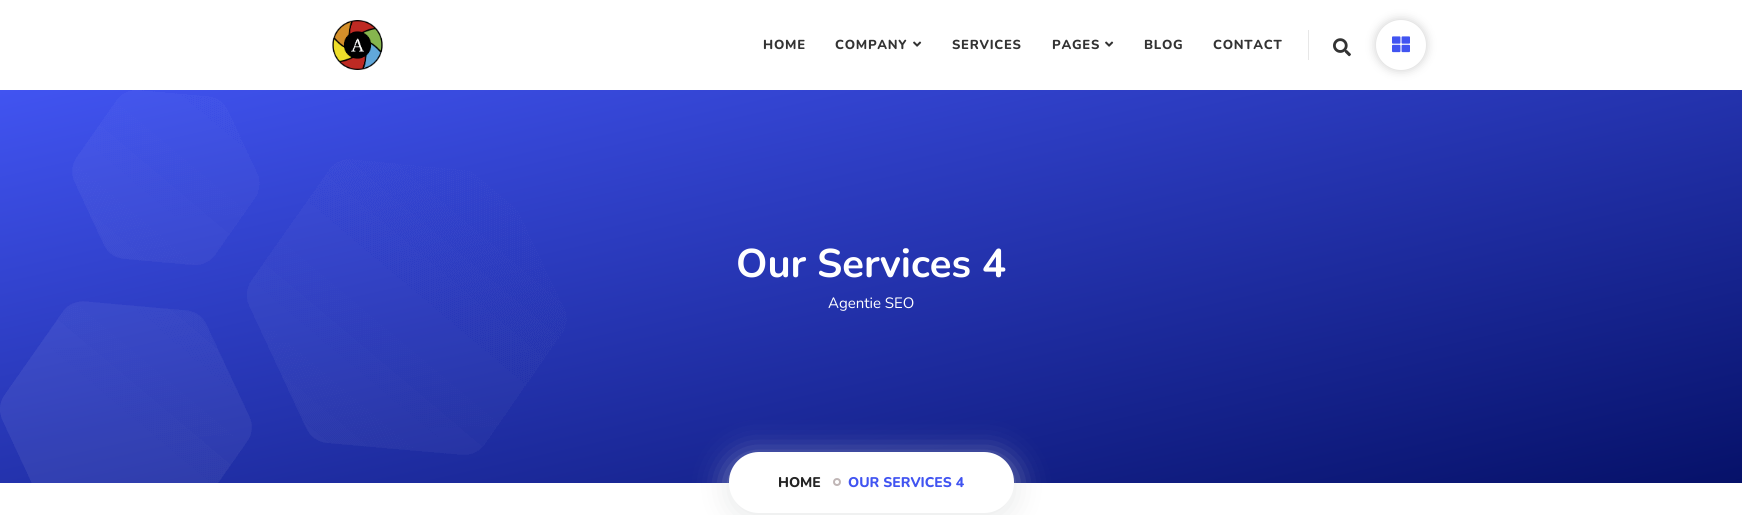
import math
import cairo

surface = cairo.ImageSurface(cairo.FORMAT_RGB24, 1742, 515)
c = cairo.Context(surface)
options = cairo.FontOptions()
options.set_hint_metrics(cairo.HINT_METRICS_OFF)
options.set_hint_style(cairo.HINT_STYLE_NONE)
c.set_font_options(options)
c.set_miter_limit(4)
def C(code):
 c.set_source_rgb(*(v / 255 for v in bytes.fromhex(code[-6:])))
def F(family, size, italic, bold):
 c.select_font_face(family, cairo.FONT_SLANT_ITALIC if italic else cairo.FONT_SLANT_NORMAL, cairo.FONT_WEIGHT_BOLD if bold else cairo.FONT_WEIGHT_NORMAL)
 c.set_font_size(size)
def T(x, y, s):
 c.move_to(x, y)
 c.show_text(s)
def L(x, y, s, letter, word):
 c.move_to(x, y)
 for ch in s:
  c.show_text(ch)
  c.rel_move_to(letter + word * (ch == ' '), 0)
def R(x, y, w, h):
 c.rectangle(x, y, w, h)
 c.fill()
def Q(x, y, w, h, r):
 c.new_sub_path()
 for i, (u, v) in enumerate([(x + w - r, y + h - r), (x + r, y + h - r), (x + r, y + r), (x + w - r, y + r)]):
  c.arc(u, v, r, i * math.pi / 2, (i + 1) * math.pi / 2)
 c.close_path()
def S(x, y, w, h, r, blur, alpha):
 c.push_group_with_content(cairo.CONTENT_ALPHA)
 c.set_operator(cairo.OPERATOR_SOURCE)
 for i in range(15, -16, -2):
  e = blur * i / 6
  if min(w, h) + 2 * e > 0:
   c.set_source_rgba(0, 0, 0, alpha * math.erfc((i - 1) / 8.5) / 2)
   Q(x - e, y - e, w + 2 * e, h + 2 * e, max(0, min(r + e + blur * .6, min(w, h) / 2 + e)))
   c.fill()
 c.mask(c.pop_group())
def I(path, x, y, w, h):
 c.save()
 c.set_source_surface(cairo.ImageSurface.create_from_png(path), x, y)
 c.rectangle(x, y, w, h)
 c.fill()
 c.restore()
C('ffffff')
c.paint()
I('1.png',332,20,51,50)
F('Nunito ExtraBold',13,0,0)
C('333333')
L(763,49,'HOME',.75,0)
L(835,49,'COMPANY',.75,0)
I('2.png',913,41,9,6)
L(952,49,'SERVICES',.75,0)
L(1052,49,'PAGES',.75,0)
I('2.png',1105,41,9,6)
L(1144,49,'BLOG',.75,0)
L(1213,49,'CONTACT',.75,0)
C('e7e7e7')
R(1308,30,1,30)
I('3.png',1333,38,18,19)
C('cccccc')
S(1376,20,50,50,25,5,1)
C('ffffff')
c.arc(1401,45,25,0,2 * math.pi)
c.fill()
I('4.png',1392,36,18,17)
gradient = cairo.LinearGradient(787,-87,955,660)
gradient.add_color_stop_rgba(0,0.255,0.329,0.945,1)
gradient.add_color_stop_rgba(1,0.024,0.067,0.412,1)
c.set_source(gradient)
R(0,90,1742,393)
I('5.png',0,90,567,393)
F('Nunito',40,0,1)
C('ffffff')
T(736,277,'Our Services 4')
F('Nunito',15,0,0)
T(828,308,'Agentie SEO')
C('d6d7d8')
S(729,457,285,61,30,15,.57)
C('ffffff')
Q(729,452,285,61,30)
c.fill()
F('Nunito ExtraBold',14,0,0)
C('232323')
T(778,487,'HOME')
c.new_path()
c.arc(837,482,3,0,2 * math.pi)
C('c0b6b6')
c.stroke()
C('4154f1')
T(848,487,'OUR SERVICES 4')
surface.write_to_png('o.png')
